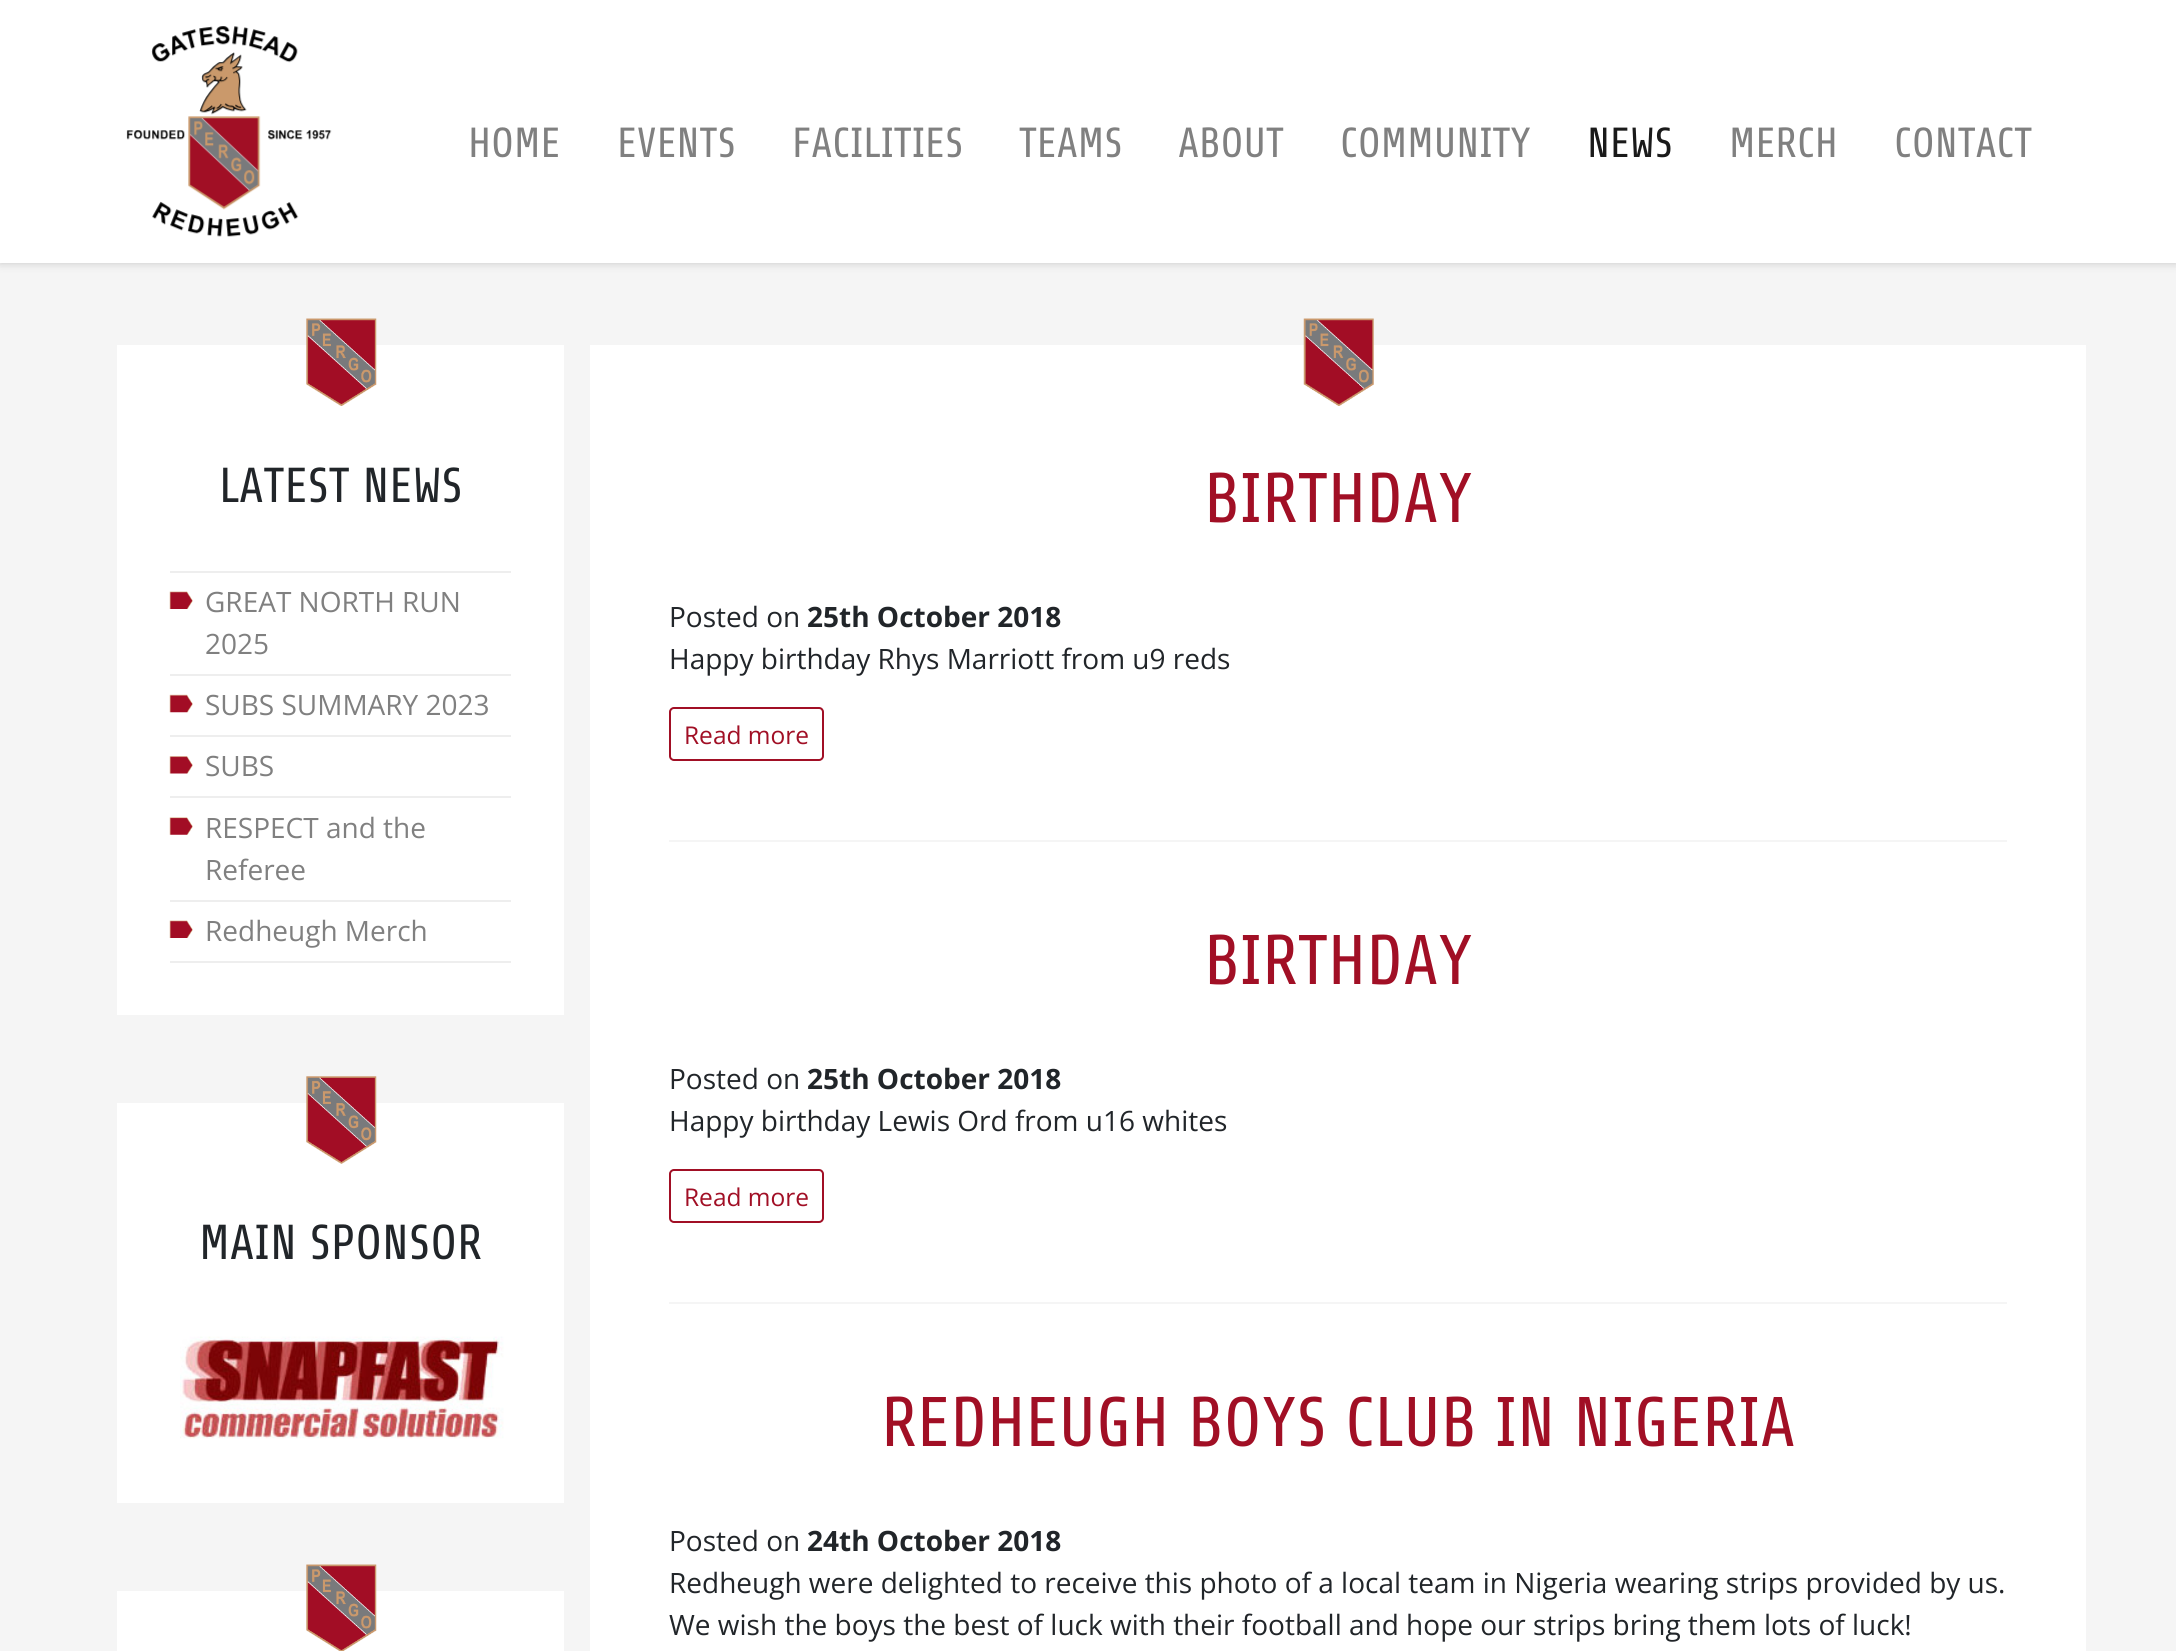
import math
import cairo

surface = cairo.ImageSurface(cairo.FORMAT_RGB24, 2176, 1651)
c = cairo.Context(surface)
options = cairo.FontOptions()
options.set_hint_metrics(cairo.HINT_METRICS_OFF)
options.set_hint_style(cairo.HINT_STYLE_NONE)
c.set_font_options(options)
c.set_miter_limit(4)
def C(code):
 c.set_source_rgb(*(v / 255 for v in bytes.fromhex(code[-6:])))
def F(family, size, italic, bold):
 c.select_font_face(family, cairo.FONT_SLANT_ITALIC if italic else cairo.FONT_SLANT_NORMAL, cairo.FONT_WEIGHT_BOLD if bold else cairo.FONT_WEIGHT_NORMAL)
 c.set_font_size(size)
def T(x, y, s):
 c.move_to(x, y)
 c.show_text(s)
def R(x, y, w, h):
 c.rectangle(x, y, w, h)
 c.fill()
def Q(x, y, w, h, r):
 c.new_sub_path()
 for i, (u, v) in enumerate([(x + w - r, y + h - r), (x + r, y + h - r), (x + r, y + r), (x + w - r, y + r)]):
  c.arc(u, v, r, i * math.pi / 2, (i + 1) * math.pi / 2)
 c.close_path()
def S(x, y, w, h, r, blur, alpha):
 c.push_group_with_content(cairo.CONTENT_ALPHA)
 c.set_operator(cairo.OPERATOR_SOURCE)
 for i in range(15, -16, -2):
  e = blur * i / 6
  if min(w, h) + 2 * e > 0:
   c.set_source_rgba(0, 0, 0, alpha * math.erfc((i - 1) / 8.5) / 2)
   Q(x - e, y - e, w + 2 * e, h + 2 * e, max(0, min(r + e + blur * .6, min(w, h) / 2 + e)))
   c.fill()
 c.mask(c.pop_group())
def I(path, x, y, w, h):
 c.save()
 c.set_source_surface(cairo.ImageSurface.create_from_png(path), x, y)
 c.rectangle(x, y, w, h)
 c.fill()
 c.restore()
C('f5f5f5')
c.paint()
C('000000')
S(0,0,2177,263,0,4.5,.2)
C('ffffff')
R(0,0,2176,263)
I('1.png',126,26,206,211)
F('Share',42,0,0)
C('808080')
T(468,157,'HOME')
T(617,157,'EVENTS')
T(792,157,'FACILITIES')
T(1019,157,'TEAMS')
T(1178,157,'ABOUT')
T(1340,157,'COMMUNITY')
C('1a1a1a')
T(1587,157,'NEWS')
C('808080')
T(1729,157,'MERCH')
T(1894,157,'CONTACT')
C('ffffff')
R(117,345,447,670)
I('2.png',306,318,71,88)
F('Share',49,0,0)
C('212529')
T(219,502,'LATEST NEWS')
C('eeeeee')
R(170,571,341,2)
I('3.png',169,591,24,18)
R(170,674,341,2)
F('Open Sans',28,0,0)
C('808080')
T(205,612,'GREAT NORTH RUN')
T(205,654,'2025')
I('4.png',169,694,24,19)
C('eeeeee')
R(170,735,341,2)
C('808080')
T(205,715,'SUBS SUMMARY 2023')
I('5.png',169,756,24,18)
C('eeeeee')
R(170,796,341,2)
C('808080')
T(205,776,'SUBS')
I('6.png',169,817,24,18)
C('eeeeee')
R(170,900,341,2)
C('808080')
T(205,838,'RESPECT and the')
T(205,880,'Referee')
I('3.png',169,920,24,18)
C('eeeeee')
R(170,961,341,2)
C('808080')
T(205,941,'Redheugh Merch')
C('ffffff')
R(117,1103,447,400)
I('7.png',306,1076,71,88)
F('Share',49,0,0)
C('212529')
T(199,1259,'MAIN SPONSOR')
I('8.png',180,1336,324,103)
C('ffffff')
R(117,1591,447,60)
I('9.png',306,1564,71,87)
R(590,345,1496,1306)
I('10.png',1303,318,71,88)
C('f5f5f5')
R(669,840,1338,2)
F('Share',70,0,0)
C('a10f25')
T(1204,522,'BIRTHDAY')
F('Open Sans',28,0,0)
C('212529')
T(669,627,'Posted on')
F('Open Sans',28,0,1)
T(807,627,'25th October 2018')
F('Open Sans',28,0,0)
T(669,669,'Happy birthday Rhys Marriott from u9 reds')
Q(670,708,153,52,4)
C('a10f25')
c.stroke()
F('Open Sans',24.5,0,0)
T(684,744,'Read more')
C('f5f5f5')
R(669,1302,1338,2)
F('Share',70,0,0)
C('a10f25')
T(1204,984,'BIRTHDAY')
F('Open Sans',28,0,0)
C('212529')
T(669,1089,'Posted on')
F('Open Sans',28,0,1)
T(807,1089,'25th October 2018')
F('Open Sans',28,0,0)
T(669,1131,'Happy birthday Lewis Ord from u16 whites')
Q(670,1170,153,52,4)
C('a10f25')
c.stroke()
F('Open Sans',24.5,0,0)
T(684,1206,'Read more')
F('Share',70,0,0)
T(881,1446,'REDHEUGH BOYS CLUB IN NIGERIA')
F('Open Sans',28,0,0)
C('212529')
T(669,1551,'Posted on')
F('Open Sans',28,0,1)
T(807,1551,'24th October 2018')
F('Open Sans',28,0,0)
T(669,1593,'Redheugh were delighted to receive this photo of a local team in Nigeria wearing strips provided by us.')
T(669,1635,'We wish the boys the best of luck with their football and hope our strips bring them lots of luck!')
surface.write_to_png('o.png')
